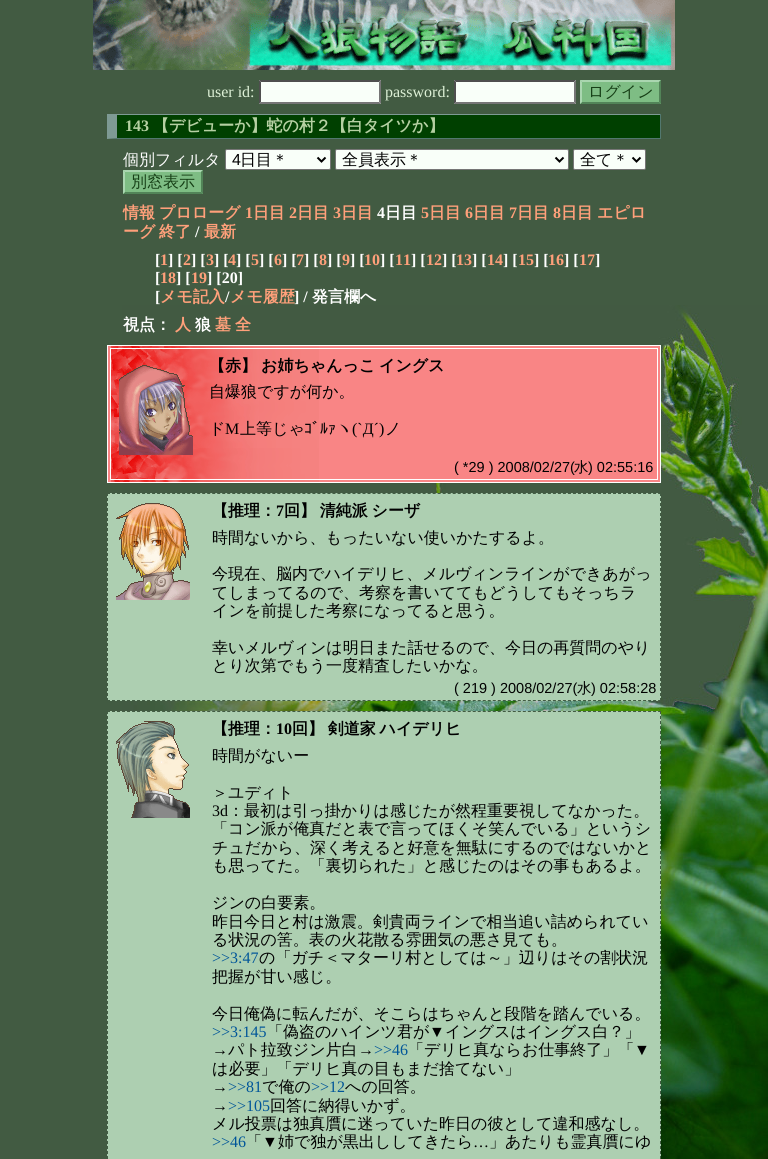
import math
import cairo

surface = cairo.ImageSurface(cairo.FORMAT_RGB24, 768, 1159)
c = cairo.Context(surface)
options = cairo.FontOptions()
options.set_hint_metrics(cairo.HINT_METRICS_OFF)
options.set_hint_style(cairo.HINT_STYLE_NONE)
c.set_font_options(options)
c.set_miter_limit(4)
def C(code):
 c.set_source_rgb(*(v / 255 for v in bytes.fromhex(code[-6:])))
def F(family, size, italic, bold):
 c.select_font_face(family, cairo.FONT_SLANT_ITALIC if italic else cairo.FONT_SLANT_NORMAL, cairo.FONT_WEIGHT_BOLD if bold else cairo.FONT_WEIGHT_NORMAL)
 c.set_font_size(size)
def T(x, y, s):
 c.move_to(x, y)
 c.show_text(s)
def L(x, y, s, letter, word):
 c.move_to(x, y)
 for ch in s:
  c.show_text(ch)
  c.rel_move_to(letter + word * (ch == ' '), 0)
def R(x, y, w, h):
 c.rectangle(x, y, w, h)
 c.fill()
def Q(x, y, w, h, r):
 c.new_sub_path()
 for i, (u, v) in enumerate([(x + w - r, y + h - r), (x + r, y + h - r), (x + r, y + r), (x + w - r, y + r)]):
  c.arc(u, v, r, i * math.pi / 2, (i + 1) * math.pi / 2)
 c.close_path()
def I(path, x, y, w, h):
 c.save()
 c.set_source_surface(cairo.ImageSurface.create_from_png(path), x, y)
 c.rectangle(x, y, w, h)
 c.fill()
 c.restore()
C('425b42')
c.paint()
I('1.png',122,305,646,854)
I('2.png',93,0,582,70)
F('Liberation Serif',16,0,0)
C('ddf0d6')
T(207,97,'user id:')
C('f9fff9')
R(259,80,122,24)
C('4f4f4f')
c.new_path()
c.move_to(259,80)
c.line_to(381,80)
c.line_to(379,82)
c.line_to(261,82)
c.close_path()
c.fill()
C('767676')
c.new_path()
c.move_to(381,80)
c.line_to(381,104)
c.line_to(379,102)
c.line_to(379,82)
c.close_path()
c.fill()
c.new_path()
c.move_to(381,104)
c.line_to(259,104)
c.line_to(261,102)
c.line_to(379,102)
c.close_path()
c.fill()
C('4f4f4f')
c.new_path()
c.move_to(259,104)
c.line_to(259,80)
c.line_to(261,82)
c.line_to(261,102)
c.close_path()
c.fill()
C('ddf0d6')
T(385,97,'password:')
C('f9fff9')
R(454,80,122,24)
C('4f4f4f')
c.new_path()
c.move_to(454,80)
c.line_to(576,80)
c.line_to(574,82)
c.line_to(456,82)
c.close_path()
c.fill()
C('767676')
c.new_path()
c.move_to(576,80)
c.line_to(576,104)
c.line_to(574,102)
c.line_to(574,82)
c.close_path()
c.fill()
c.new_path()
c.move_to(576,104)
c.line_to(454,104)
c.line_to(456,102)
c.line_to(574,102)
c.close_path()
c.fill()
C('4f4f4f')
c.new_path()
c.move_to(454,104)
c.line_to(454,80)
c.line_to(456,82)
c.line_to(456,102)
c.close_path()
c.fill()
C('7ebd84')
R(580,80,81,24)
C('aad6b0')
c.new_path()
c.move_to(580,80)
c.line_to(661,80)
c.line_to(659,82)
c.line_to(582,82)
c.close_path()
c.fill()
C('528458')
c.new_path()
c.move_to(661,80)
c.line_to(661,104)
c.line_to(659,102)
c.line_to(659,82)
c.close_path()
c.fill()
c.new_path()
c.move_to(661,104)
c.line_to(580,104)
c.line_to(582,102)
c.line_to(659,102)
c.close_path()
c.fill()
C('aad6b0')
c.new_path()
c.move_to(580,104)
c.line_to(580,80)
c.line_to(582,82)
c.line_to(582,102)
c.close_path()
c.fill()
F('WenQuanYi Zen Hei Medium',16,0,0)
C('163f16')
T(588,97,'ログイン')
C('004000')
R(117,115,543,23)
C('7e9a94')
R(107,114,554,1)
C('52786f')
R(660,114,1,25)
c.new_path()
c.move_to(661,139)
c.line_to(107,139)
c.line_to(117,138)
c.line_to(660,138)
c.close_path()
c.fill()
C('7e9a94')
c.new_path()
c.move_to(107,139)
c.line_to(107,114)
c.line_to(117,115)
c.line_to(117,138)
c.close_path()
c.fill()
F('Liberation Serif',16,0,1)
C('b6d0a3')
T(125,131,'143')
F('WenQuanYi Zen Hei',16,0,1)
T(153,131,'【デビューか】蛇の村２【白タイツか】')
F('WenQuanYi Zen Hei Medium',16,0,0)
C('ffffff')
T(123,165,'個別フィルタ')
C('f9fff9')
Q(225.5,149.5,105,20,1.5)
c.fill_preserve()
C('767676')
c.set_line_width(1)
c.stroke()
c.new_path()
c.move_to(317.5,157.5)
c.line_to(321.5,161.5)
c.line_to(325.5,157.5)
C('000000')
c.set_line_width(2)
c.stroke()
F('Liberation Sans',16,0,0)
T(232,165,'4')
F('WenQuanYi Zen Hei Medium',16,0,0)
T(240,165,'日目＊')
C('f9fff9')
Q(335.5,149.5,233,20,1.5)
c.fill_preserve()
C('767676')
c.set_line_width(1)
c.stroke()
c.new_path()
c.move_to(555.5,157.5)
c.line_to(559.5,161.5)
c.line_to(563.5,157.5)
C('000000')
c.set_line_width(2)
c.stroke()
T(342,165,'全員表示＊')
C('f9fff9')
Q(573.5,149.5,72,20,1.5)
c.fill_preserve()
C('767676')
c.set_line_width(1)
c.stroke()
c.new_path()
c.move_to(632.5,157.5)
c.line_to(636.5,161.5)
c.line_to(640.5,157.5)
C('000000')
c.set_line_width(2)
c.stroke()
T(580,165,'全て＊')
C('7ebd84')
R(123,170,80,24)
C('aad6b0')
c.new_path()
c.move_to(123,170)
c.line_to(203,170)
c.line_to(201,172)
c.line_to(125,172)
c.close_path()
c.fill()
C('528458')
c.new_path()
c.move_to(203,170)
c.line_to(203,194)
c.line_to(201,192)
c.line_to(201,172)
c.close_path()
c.fill()
c.new_path()
c.move_to(203,194)
c.line_to(123,194)
c.line_to(125,192)
c.line_to(201,192)
c.close_path()
c.fill()
C('aad6b0')
c.new_path()
c.move_to(123,194)
c.line_to(123,170)
c.line_to(125,172)
c.line_to(125,192)
c.close_path()
c.fill()
C('163f16')
T(131,187,'別窓表示')
F('WenQuanYi Zen Hei',16,0,1)
C('ffa07a')
T(123,218,'情報')
T(159,218,'プロローグ')
F('Liberation Serif',16,0,1)
T(245,218,'1')
F('WenQuanYi Zen Hei',16,0,1)
T(253,218,'日目')
F('Liberation Serif',16,0,1)
T(289,218,'2')
F('WenQuanYi Zen Hei',16,0,1)
T(297,218,'日目')
F('Liberation Serif',16,0,1)
T(333,218,'3')
F('WenQuanYi Zen Hei',16,0,1)
T(341,218,'日目')
F('Liberation Serif',16,0,1)
C('ffffff')
T(377,218,'4')
F('WenQuanYi Zen Hei',16,0,1)
T(385,218,'日目')
F('Liberation Serif',16,0,1)
C('ffa07a')
T(421,218,'5')
F('WenQuanYi Zen Hei',16,0,1)
T(429,218,'日目')
F('Liberation Serif',16,0,1)
T(465,218,'6')
F('WenQuanYi Zen Hei',16,0,1)
T(473,218,'日目')
F('Liberation Serif',16,0,1)
T(509,218,'7')
F('WenQuanYi Zen Hei',16,0,1)
T(517,218,'日目')
F('Liberation Serif',16,0,1)
T(553,218,'8')
F('WenQuanYi Zen Hei',16,0,1)
T(561,218,'日目')
T(597,218,'エピロ')
T(123,237,'ーグ')
T(159,237,'終了')
F('Liberation Serif',16,0,1)
C('ffffff')
T(195,237,'/')
F('WenQuanYi Zen Hei',16,0,1)
C('ffa07a')
T(204,237,'最新')
F('Liberation Serif',16,0,1)
C('ffffff')
T(155,265,'[')
C('ffa07a')
T(160,265,'1')
C('ffffff')
T(168,265,'] [')
C('ffa07a')
T(183,265,'2')
C('ffffff')
T(191,265,'] [')
C('ffa07a')
T(206,265,'3')
C('ffffff')
T(214,265,'] [')
C('ffa07a')
T(228,265,'4')
C('ffffff')
T(236,265,'] [')
C('ffa07a')
T(251,265,'5')
C('ffffff')
T(259,265,'] [')
C('ffa07a')
T(274,265,'6')
C('ffffff')
T(282,265,'] [')
C('ffa07a')
T(296,265,'7')
C('ffffff')
T(304,265,'] [')
C('ffa07a')
T(319,265,'8')
C('ffffff')
T(327,265,'] [')
C('ffa07a')
T(342,265,'9')
C('ffffff')
T(350,265,'] [')
C('ffa07a')
T(364,265,'10')
C('ffffff')
T(380,265,'] [')
C('ffa07a')
T(395,265,'11')
C('ffffff')
T(411,265,'] [')
C('ffa07a')
T(426,265,'12')
C('ffffff')
T(442,265,'] [')
C('ffa07a')
T(456,265,'13')
C('ffffff')
T(472,265,'] [')
C('ffa07a')
T(487,265,'14')
C('ffffff')
T(503,265,'] [')
C('ffa07a')
T(518,265,'15')
C('ffffff')
T(534,265,'] [')
C('ffa07a')
T(548,265,'16')
C('ffffff')
T(564,265,'] [')
C('ffa07a')
T(579,265,'17')
C('ffffff')
T(595,265,']')
T(155,283,'[')
C('ffa07a')
T(160,283,'18')
C('ffffff')
T(176,283,'] [')
C('ffa07a')
T(191,283,'19')
C('ffffff')
T(207,283,'] [20]')
T(155,302,'[')
F('WenQuanYi Zen Hei',16,0,1)
C('ffa07a')
T(160,302,'メモ記入')
F('Liberation Serif',16,0,1)
C('ffffff')
T(225,302,'/')
F('WenQuanYi Zen Hei',16,0,1)
C('ffa07a')
T(230,302,'メモ履歴')
F('Liberation Serif',16,0,1)
C('ffffff')
T(294,302,'] /')
F('WenQuanYi Zen Hei',16,0,1)
T(312,302,'発言欄へ')
T(123,330,'視点：')
C('ffa07a')
T(175,330,'人')
C('ffffff')
T(195,330,'狼')
C('ffa07a')
T(215,330,'墓')
T(235,330,'全')
C('f98585')
R(108,346,552,136)
I('3.png',111,346,208,136)
c.rectangle(107.5,345.5,553,137)
C('ffffff')
c.set_line_width(1)
c.stroke()
c.rectangle(110.5,348.5,547,131)
c.stroke()
I('4.png',119,365,74,90)
C('000000')
T(209,371,'【赤】')
L(261,371,'お姉ちゃんっこ イングス',0,-1)
F('WenQuanYi Zen Hei Medium',16,0,0)
T(209,397,'自爆狼ですが何か。')
T(209,434,'ド')
F('Liberation Serif',16,0,0)
T(225,434,'M')
F('WenQuanYi Zen Hei Medium',16,0,0)
T(240,434,'上等じゃ')
F('IPAPGothic',16,0,0)
T(304,434,'ｺﾞﾙｧ')
F('WenQuanYi Zen Hei Medium',16,0,0)
T(336,434,'ヽ')
F('Liberation Serif',16,0,0)
T(352,434,'(`Д´)')
F('WenQuanYi Zen Hei Medium',16,0,0)
T(385,434,'ノ')
F('Liberation Sans',14.5,0,0)
T(454,472,'( *29 ) 2008/02/27(')
F('WenQuanYi Zen Hei Medium',14.5,0,0)
T(574,472,'水')
F('Liberation Sans',14.5,0,0)
T(588,472,') 02:55:16')
C('adcfb1')
R(107,493,554,208)
c.new_path()
c.move_to(107,493.5)
c.line_to(661,493.5)
C('425b43')
c.set_dash([3,2.01])
c.stroke()
c.new_path()
c.move_to(660.5,493)
c.line_to(660.5,701)
c.set_dash([3,2])
c.stroke()
c.new_path()
c.move_to(107,700.5)
c.line_to(661,700.5)
c.set_dash([3,2.01])
c.stroke()
c.new_path()
c.move_to(107.5,493)
c.line_to(107.5,701)
c.set_dash([3,2])
c.stroke()
I('5.png',116,503,74,97)
F('WenQuanYi Zen Hei',16,0,1)
C('000000')
T(212,516,'【推理：')
F('Liberation Serif',16,0,1)
T(276,516,'7')
F('WenQuanYi Zen Hei',16,0,1)
L(284,516,'回】 清純派 シーザ',0,-1)
F('WenQuanYi Zen Hei Medium',16,0,0)
T(212,543,'時間ないから、もったいない使いかたするよ。')
T(212,579,'今現在、脳内でハイデリヒ、メルヴィンラインができあがっ')
T(212,598,'てしまってるので、考察を書いててもどうしてもそっちラ')
T(212,616,'インを前提した考察になってると思う。')
T(212,653,'幸いメルヴィンは明日また話せるので、今日の再質問のやり')
T(212,671,'とり次第でもう一度精査したいかな。')
F('Liberation Sans',14.5,0,0)
T(454,693,'( 219 ) 2008/02/27(')
F('WenQuanYi Zen Hei Medium',14.5,0,0)
T(577,693,'水')
F('Liberation Sans',14.5,0,0)
T(591,693,') 02:58:28')
C('adcfb1')
R(107,711,554,448)
c.new_path()
c.move_to(107,711.5)
c.line_to(661,711.5)
C('425b43')
c.set_dash([3,2.01])
c.stroke()
c.new_path()
c.move_to(660.5,711)
c.line_to(660.5,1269)
c.set_dash([3,2])
c.stroke()
c.new_path()
c.move_to(107.5,711)
c.line_to(107.5,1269)
c.stroke()
I('6.png',116,721,74,97)
F('WenQuanYi Zen Hei',16,0,1)
C('000000')
T(212,734,'【推理：')
F('Liberation Serif',16,0,1)
T(276,734,'10')
F('WenQuanYi Zen Hei',16,0,1)
L(292,734,'回】 剣道家 ハイデリヒ',0,-1)
F('WenQuanYi Zen Hei Medium',16,0,0)
T(212,761,'時間がないー')
T(212,798,'＞ユディト')
F('Liberation Serif',16,0,0)
T(212,816,'3d')
F('WenQuanYi Zen Hei Medium',16,0,0)
T(228,816,'：最初は引っ掛かりは感じたが然程重要視してなかった。')
T(212,834,'「コン派が俺真だと表で言ってほくそ笑んでいる」というシ')
T(212,853,'チュだから、深く考えると好意を無駄にするのではないかと')
T(212,871,'も思ってた。「裏切られた」と感じたのはその事もあるよ。')
T(212,908,'ジンの白要素。')
T(212,927,'昨日今日と村は激震。剣貴両ラインで相当追い詰められてい')
T(212,945,'る状況の筈。表の火花散る雰囲気の悪さ見ても。')
F('Liberation Serif',16,0,0)
C('005599')
T(212,963,'>>3:47')
F('WenQuanYi Zen Hei Medium',16,0,0)
C('000000')
T(259,963,'の「ガチ＜マターリ村としては～」辺りはその割状況')
T(212,982,'把握が甘い感じ。')
T(212,1019,'今日俺偽に転んだが、そこらはちゃんと段階を踏んでいる。')
F('Liberation Serif',16,0,0)
C('005599')
T(212,1037,'>>3:145')
F('WenQuanYi Zen Hei Medium',16,0,0)
C('000000')
T(267,1037,'「偽盗のハインツ君が')
F('Liberation Serif',16,0,0)
T(429,1037,'▼')
F('WenQuanYi Zen Hei Medium',16,0,0)
T(445,1037,'イングスはイングス白？」')
F('Liberation Serif',16,0,0)
T(212,1055,'→')
F('WenQuanYi Zen Hei Medium',16,0,0)
T(228,1055,'パト拉致ジン片白')
F('Liberation Serif',16,0,0)
T(358,1055,'→')
C('005599')
T(374,1055,'>>46')
F('WenQuanYi Zen Hei Medium',16,0,0)
C('000000')
T(408,1055,'「デリヒ真ならお仕事終了」「')
F('Liberation Serif',16,0,0)
T(634,1055,'▼')
F('WenQuanYi Zen Hei Medium',16,0,0)
T(212,1074,'は必要」「デリヒ真の目もまだ捨てない」')
F('Liberation Serif',16,0,0)
T(212,1092,'→')
C('005599')
T(228,1092,'>>81')
F('WenQuanYi Zen Hei Medium',16,0,0)
C('000000')
T(262,1092,'で俺の')
F('Liberation Serif',16,0,0)
C('005599')
T(311,1092,'>>12')
F('WenQuanYi Zen Hei Medium',16,0,0)
C('000000')
T(345,1092,'への回答。')
F('Liberation Serif',16,0,0)
T(212,1111,'→')
C('005599')
T(228,1111,'>>105')
F('WenQuanYi Zen Hei Medium',16,0,0)
C('000000')
T(270,1111,'回答に納得いかず。')
T(212,1129,'メル投票は独真贋に迷っていた昨日の彼として違和感なし。')
F('Liberation Serif',16,0,0)
C('005599')
T(212,1147,'>>46')
F('WenQuanYi Zen Hei Medium',16,0,0)
C('000000')
T(246,1147,'「')
F('Liberation Serif',16,0,0)
T(262,1147,'▼')
F('WenQuanYi Zen Hei Medium',16,0,0)
T(278,1147,'姉で独が黒出ししてきたら')
F('Liberation Serif',16,0,0)
T(473,1147,'…')
F('WenQuanYi Zen Hei Medium',16,0,0)
T(489,1147,'」あたりも霊真贋にゆ')
surface.write_to_png('o.png')
